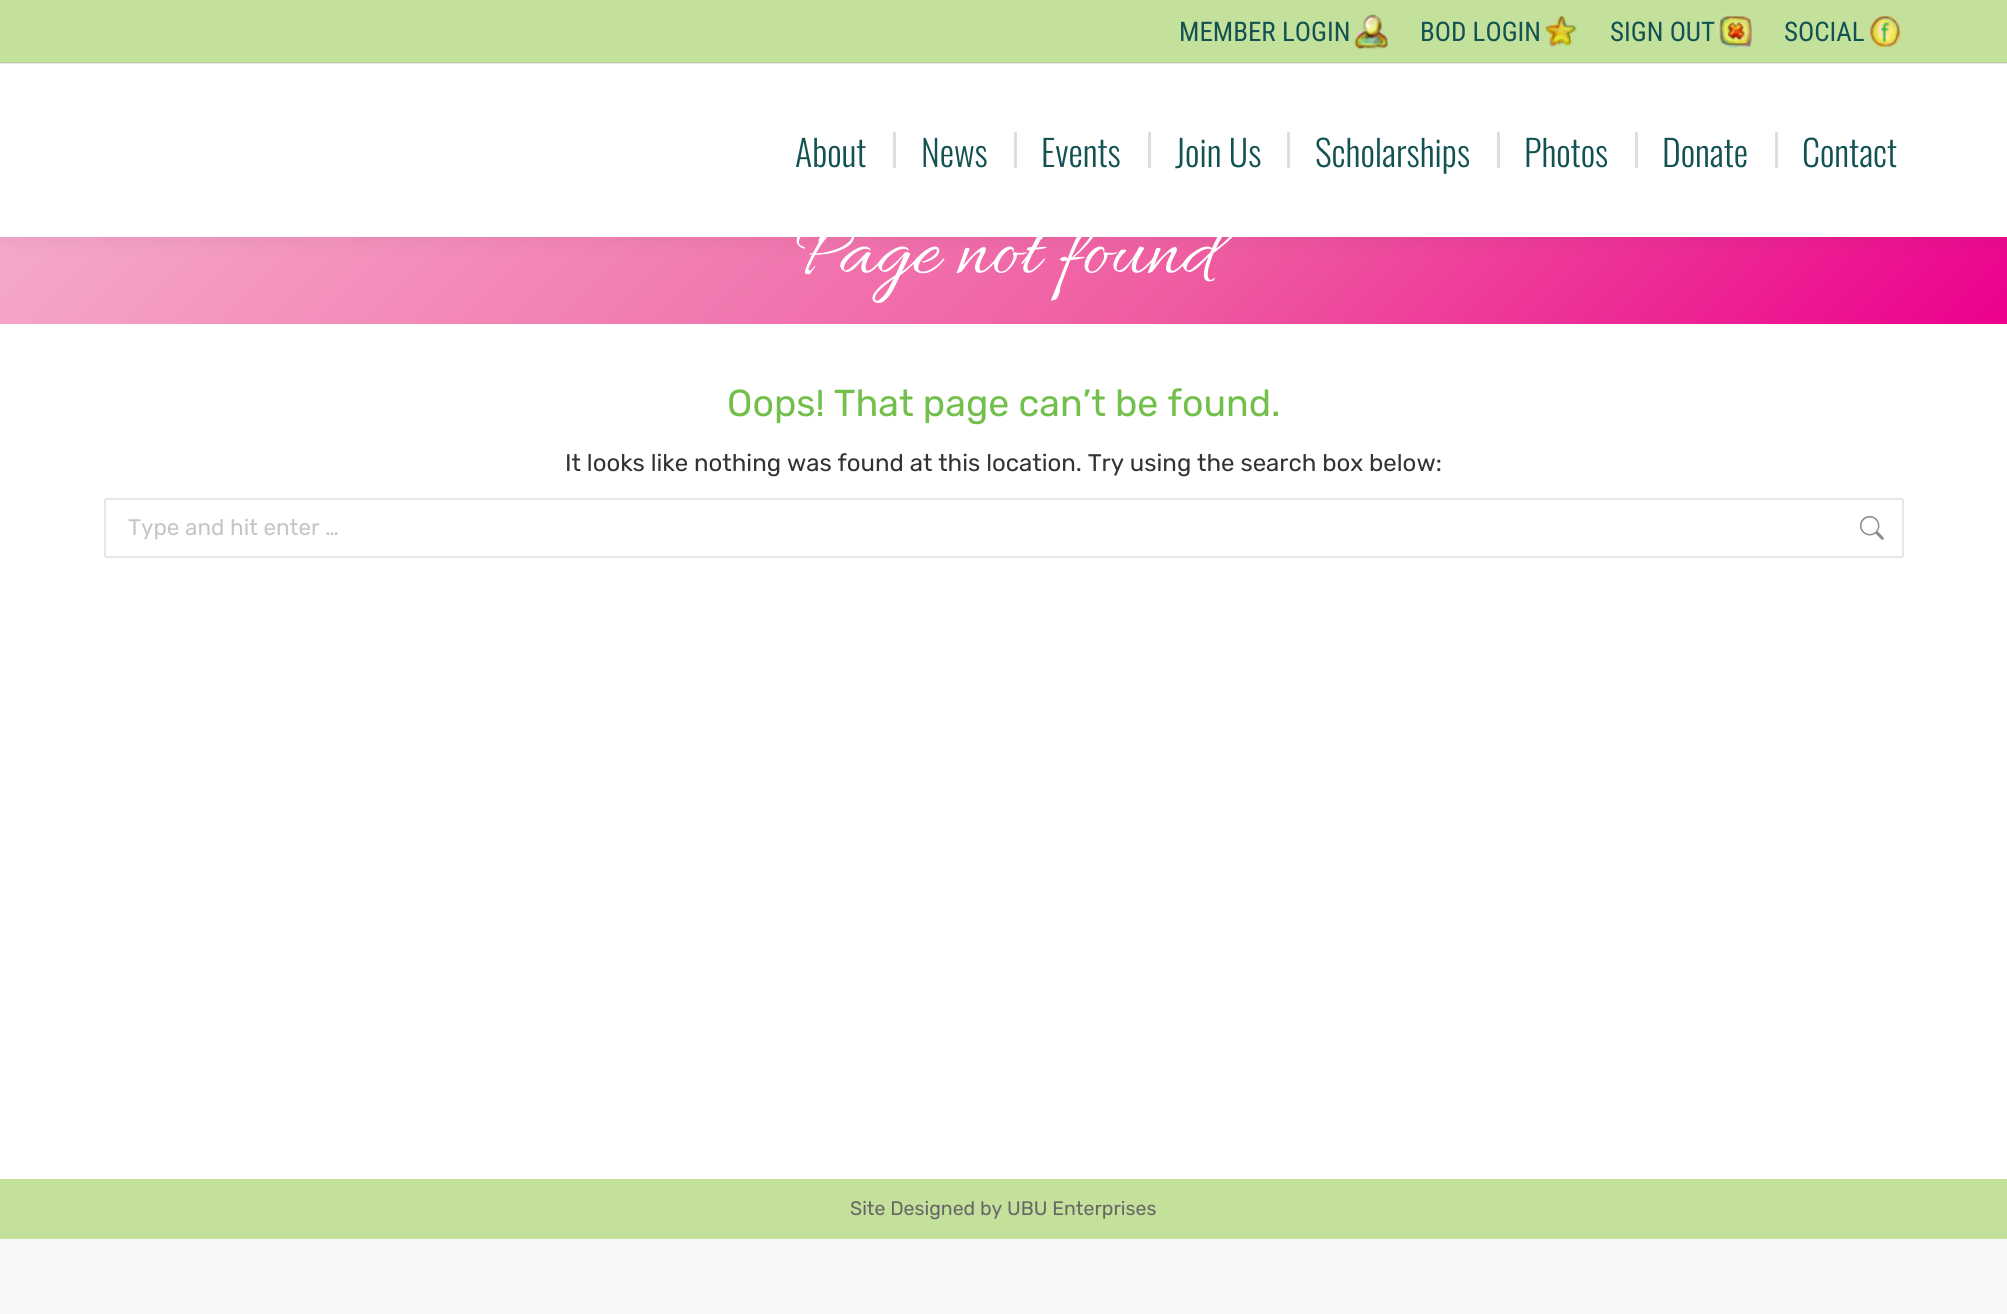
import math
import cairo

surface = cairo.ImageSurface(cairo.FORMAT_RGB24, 2007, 1314)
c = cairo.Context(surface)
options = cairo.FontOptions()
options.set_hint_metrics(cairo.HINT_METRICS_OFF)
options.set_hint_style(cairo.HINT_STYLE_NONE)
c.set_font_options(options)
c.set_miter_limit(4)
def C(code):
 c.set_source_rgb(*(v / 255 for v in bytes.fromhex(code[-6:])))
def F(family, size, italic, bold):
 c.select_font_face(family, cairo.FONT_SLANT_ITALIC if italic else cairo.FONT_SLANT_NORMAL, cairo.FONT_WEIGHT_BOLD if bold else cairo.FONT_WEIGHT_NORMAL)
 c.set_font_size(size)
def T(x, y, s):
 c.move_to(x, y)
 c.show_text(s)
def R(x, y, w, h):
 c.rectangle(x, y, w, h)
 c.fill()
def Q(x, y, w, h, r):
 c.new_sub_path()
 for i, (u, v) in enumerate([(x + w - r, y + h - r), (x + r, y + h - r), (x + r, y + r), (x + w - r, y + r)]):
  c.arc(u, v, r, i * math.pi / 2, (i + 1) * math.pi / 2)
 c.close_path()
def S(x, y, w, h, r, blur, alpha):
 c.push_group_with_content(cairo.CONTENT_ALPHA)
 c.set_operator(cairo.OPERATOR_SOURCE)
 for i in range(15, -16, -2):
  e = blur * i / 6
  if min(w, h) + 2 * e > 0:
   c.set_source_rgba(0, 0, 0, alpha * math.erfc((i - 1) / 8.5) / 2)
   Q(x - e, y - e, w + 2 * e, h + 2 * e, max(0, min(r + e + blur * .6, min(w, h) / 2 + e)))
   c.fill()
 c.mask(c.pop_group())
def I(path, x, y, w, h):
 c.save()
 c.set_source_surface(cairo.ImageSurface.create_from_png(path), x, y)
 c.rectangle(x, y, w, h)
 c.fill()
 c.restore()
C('f7f7f7')
c.paint()
C('ffffff')
R(0,324,2007,855)
gradient = cairo.LinearGradient(464,-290,1543,788)
gradient.add_color_stop_rgba(0,0.965,0.678,0.8,1)
gradient.add_color_stop_rgba(.6,0.937,0.361,0.631,1)
gradient.add_color_stop_rgba(1,0.925,0,0.549,1)
c.set_source(gradient)
R(0,237,2007,87)
C('000000')
S(-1,-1,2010,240,0,11,.07)
C('ffffff')
R(0,64,2007,173)
C('e9e9e9')
R(0,63,2007,1)
C('c3e19b')
R(0,0,2007,62)
C('b3ce90')
R(0,62,2007,1)
F('Roboto Condensed',27,0,0)
C('135252')
T(1179,41,'MEMBER LOGIN')
I('1.png',1354,14,34,36)
T(1420,41,'BOD LOGIN')
I('2.png',1544,15,33,32)
T(1610,41,'SIGN OUT')
I('3.png',1717,15,37,34)
T(1784,41,'SOCIAL')
I('4.png',1869,15,32,34)
F('Oswald Light',36,0,0)
T(795,167,'About')
C('dedede')
R(893,132,3,36)
C('135252')
T(921,167,'News')
C('dedede')
R(1014,132,3,36)
C('135252')
T(1041,167,'Events')
C('dedede')
R(1148,132,3,36)
C('135252')
T(1175,167,'Join Us')
C('dedede')
R(1287,132,3,36)
C('135252')
T(1315,167,'Scholarships')
C('dedede')
R(1497,132,3,36)
C('135252')
T(1524,167,'Photos')
C('dedede')
R(1635,132,3,36)
C('135252')
T(1662,167,'Donate')
C('dedede')
R(1775,132,3,36)
C('135252')
T(1802,167,'Contact')
F('Allura',84,0,0)
C('ffffff')
T(794,272,'Page not found')
F('Rubik',37.5,0,0)
C('72bf4b')
T(727,416,'Oops! That page can’t be found.')
F('Rubik',24,0,0)
C('333333')
T(565,471,'It looks like nothing was found at this location. Try using the search box below:')
Q(105,499,1798,58,2)
C('e7e7e7')
c.stroke()
F('Rubik',22.5,0,0)
C('c4c5c9')
T(128,535,'Type and hit enter …')
I('5.png',1860,516,24,24)
C('c3e19b')
R(0,1179,2007,60)
F('Rubik',19.5,0,0)
C('666666')
T(850,1215,'Site Designed by UBU Enterprises')
surface.write_to_png('o.png')
